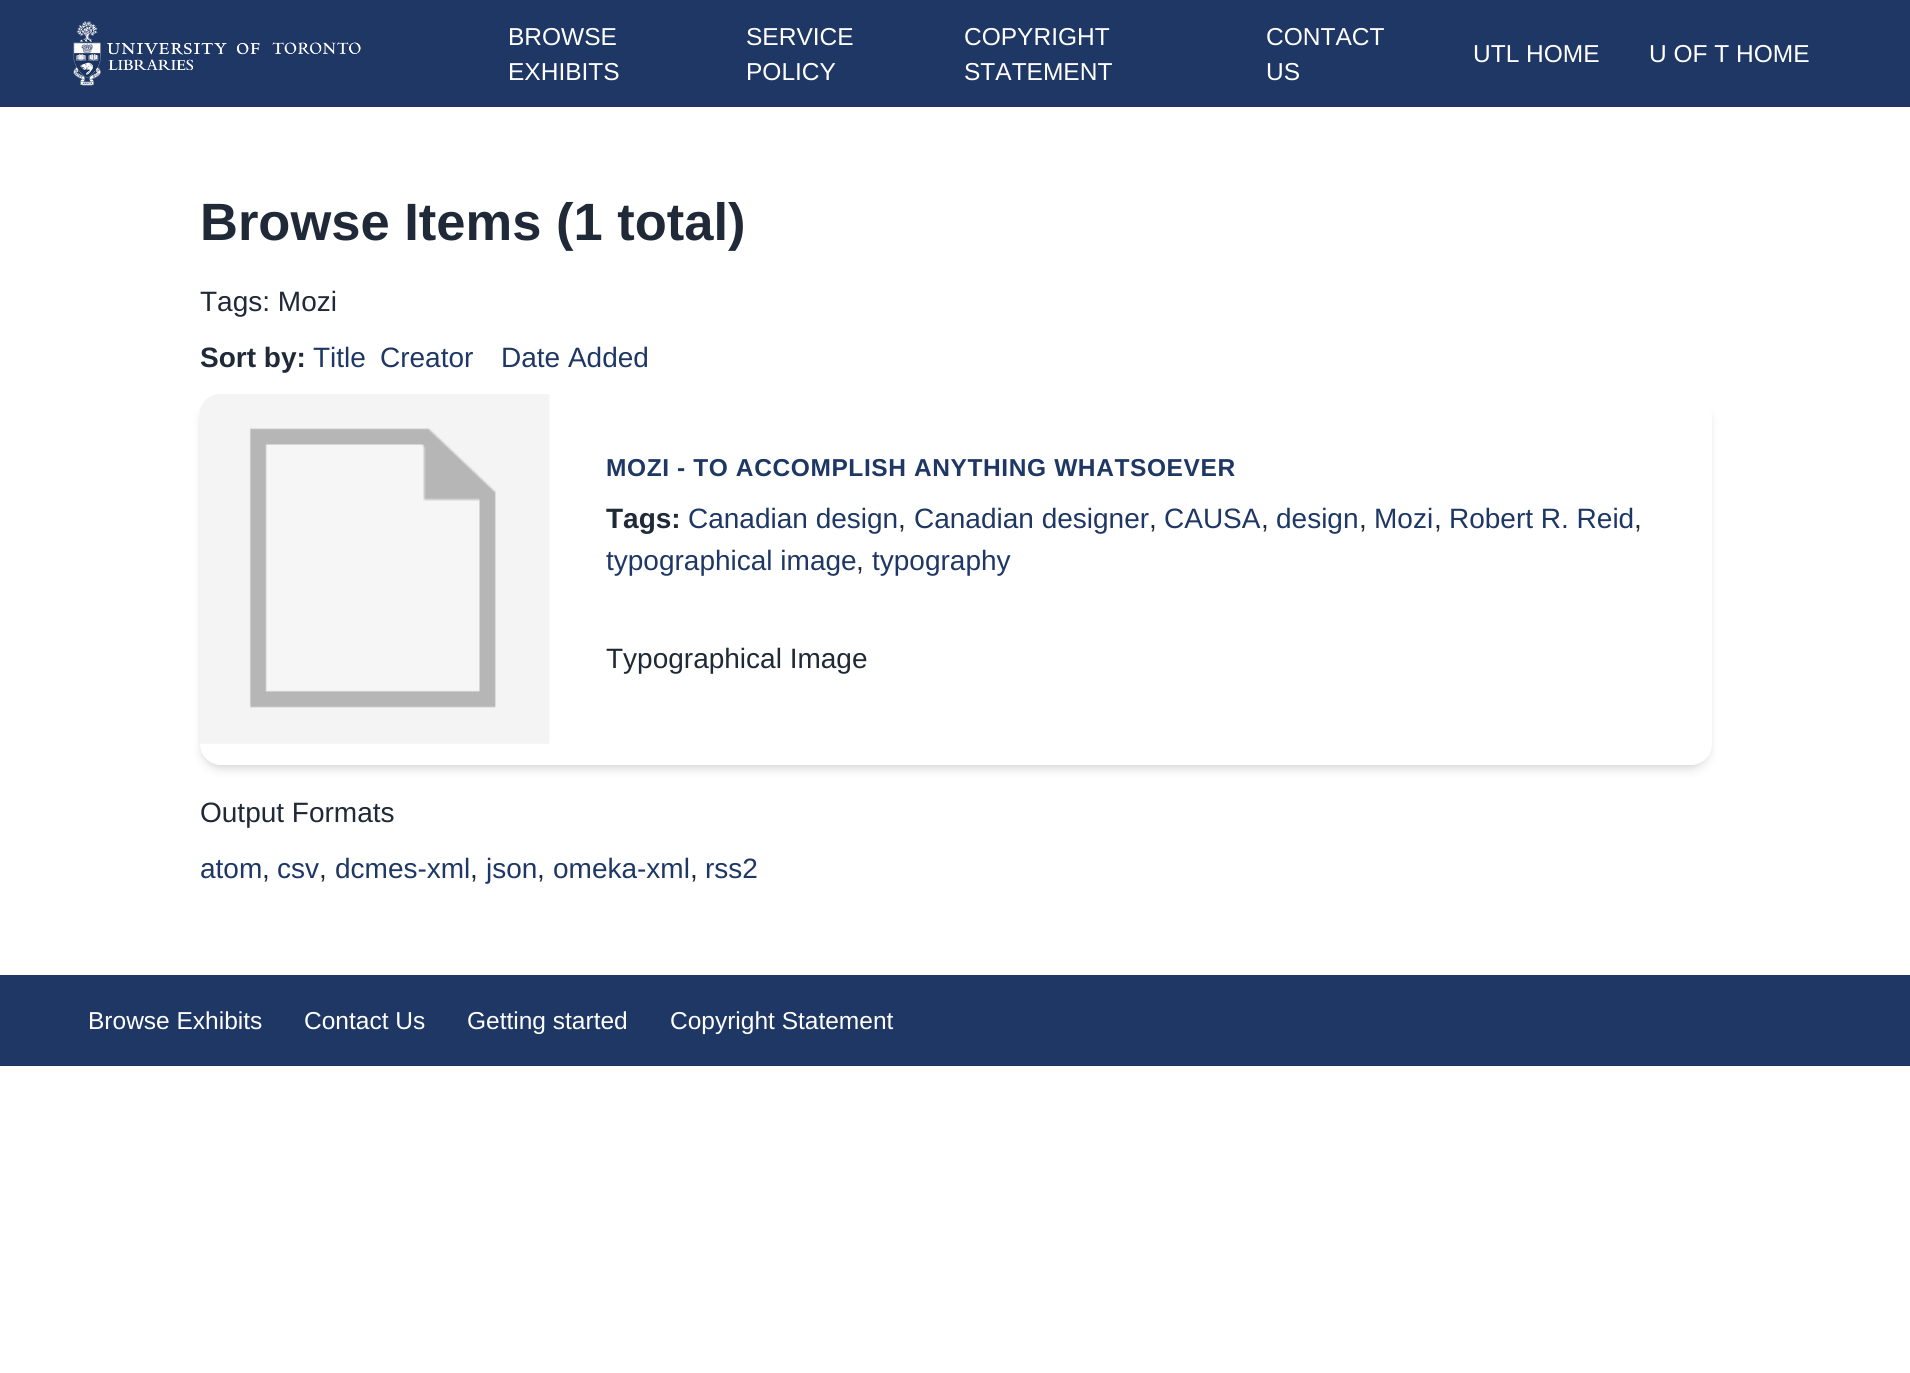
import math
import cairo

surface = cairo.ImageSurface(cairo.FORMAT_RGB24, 1910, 1373)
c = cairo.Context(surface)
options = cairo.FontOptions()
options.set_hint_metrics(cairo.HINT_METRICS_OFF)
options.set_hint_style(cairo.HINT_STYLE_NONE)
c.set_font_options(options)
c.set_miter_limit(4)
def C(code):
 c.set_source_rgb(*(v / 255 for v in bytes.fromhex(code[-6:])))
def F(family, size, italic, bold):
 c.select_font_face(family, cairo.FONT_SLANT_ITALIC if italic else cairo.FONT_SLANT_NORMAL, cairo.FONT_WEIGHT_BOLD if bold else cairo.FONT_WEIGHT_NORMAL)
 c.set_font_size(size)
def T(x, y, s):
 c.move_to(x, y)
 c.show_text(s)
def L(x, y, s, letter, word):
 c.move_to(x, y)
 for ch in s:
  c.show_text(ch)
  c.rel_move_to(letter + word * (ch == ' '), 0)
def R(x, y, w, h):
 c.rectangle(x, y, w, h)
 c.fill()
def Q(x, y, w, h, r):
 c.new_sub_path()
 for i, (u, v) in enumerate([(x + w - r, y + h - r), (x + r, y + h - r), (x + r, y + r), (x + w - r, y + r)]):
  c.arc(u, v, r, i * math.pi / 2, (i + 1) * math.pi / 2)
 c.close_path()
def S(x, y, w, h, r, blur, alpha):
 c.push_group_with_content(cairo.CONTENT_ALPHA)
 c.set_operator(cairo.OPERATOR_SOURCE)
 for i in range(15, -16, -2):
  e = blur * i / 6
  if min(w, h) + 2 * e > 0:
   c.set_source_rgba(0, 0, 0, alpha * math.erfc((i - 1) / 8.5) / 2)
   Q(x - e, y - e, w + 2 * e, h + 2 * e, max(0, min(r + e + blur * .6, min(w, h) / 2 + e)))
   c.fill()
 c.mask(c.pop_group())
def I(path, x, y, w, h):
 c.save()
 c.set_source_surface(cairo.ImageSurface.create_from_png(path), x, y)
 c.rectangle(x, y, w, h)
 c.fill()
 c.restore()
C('ffffff')
c.paint()
C('1e3765')
R(0,0,1910,107)
I('1.png',73,21,288,65)
F('Liberation Sans',24.5,0,0)
C('ffffff')
T(508,45,'BROWSE')
T(508,80,'EXHIBITS')
T(746,45,'SERVICE')
T(746,80,'POLICY')
T(964,45,'COPYRIGHT')
T(964,80,'STATEMENT')
T(1266,45,'CONTACT')
T(1266,80,'US')
T(1473,62,'UTL HOME')
T(1649,62,'U OF T HOME')
F('Liberation Sans',52.5,0,1)
C('1f2937')
T(200,240,'Browse Items (1 total)')
F('Liberation Sans',28,0,0)
T(200,311,'Tags: Mozi')
F('Liberation Sans',28,0,1)
T(200,367,'Sort by:')
F('Liberation Sans',28,0,0)
C('1e3765')
T(313,367,'Title')
T(380,367,'Creator')
T(501,367,'Date Added')
C('000000')
S(203,401,1505,364,18,3.5,.1)
S(201,403,1509,367,19,5,.1)
C('ffffff')
Q(200,394,1512,371,21)
c.fill()
I('2.png',200,394,350,350)
F('Liberation Sans',24.5,0,1)
C('1e3765')
L(606,476,'MOZI - TO ACCOMPLISH ANYTHING WHATSOEVER',.6,0)
F('Liberation Sans',28,0,1)
C('1f2937')
T(606,528,'Tags:')
F('Liberation Sans',28,0,0)
C('1e3765')
T(688,528,'Canadian design')
C('1f2937')
T(898,528,',')
C('1e3765')
T(914,528,'Canadian designer')
C('1f2937')
T(1149,528,',')
C('1e3765')
T(1164,528,'CAUSA')
C('1f2937')
T(1261,528,',')
C('1e3765')
T(1276,528,'design')
C('1f2937')
T(1359,528,',')
C('1e3765')
T(1374,528,'Mozi')
C('1f2937')
T(1434,528,',')
C('1e3765')
T(1449,528,'Robert R. Reid')
C('1f2937')
T(1634,528,',')
C('1e3765')
T(606,570,'typographical image')
C('1f2937')
T(856,570,',')
C('1e3765')
T(872,570,'typography')
C('1f2937')
T(606,668,'Typographical Image')
T(200,822,'Output Formats')
C('1e3765')
T(200,878,'atom')
C('1f2937')
T(262,878,',')
C('1e3765')
T(277,878,'csv')
C('1f2937')
T(319,878,',')
C('1e3765')
T(335,878,'dcmes-xml')
C('1f2937')
T(470,878,',')
C('1e3765')
T(486,878,'json')
C('1f2937')
T(537,878,',')
C('1e3765')
T(553,878,'omeka-xml')
C('1f2937')
T(690,878,',')
C('1e3765')
T(705,878,'rss2')
R(0,975,1910,91)
F('Liberation Sans',24.5,0,0)
C('ffffff')
T(88,1029,'Browse Exhibits')
T(304,1029,'Contact Us')
T(467,1029,'Getting started')
T(670,1029,'Copyright Statement')
surface.write_to_png('o.png')
